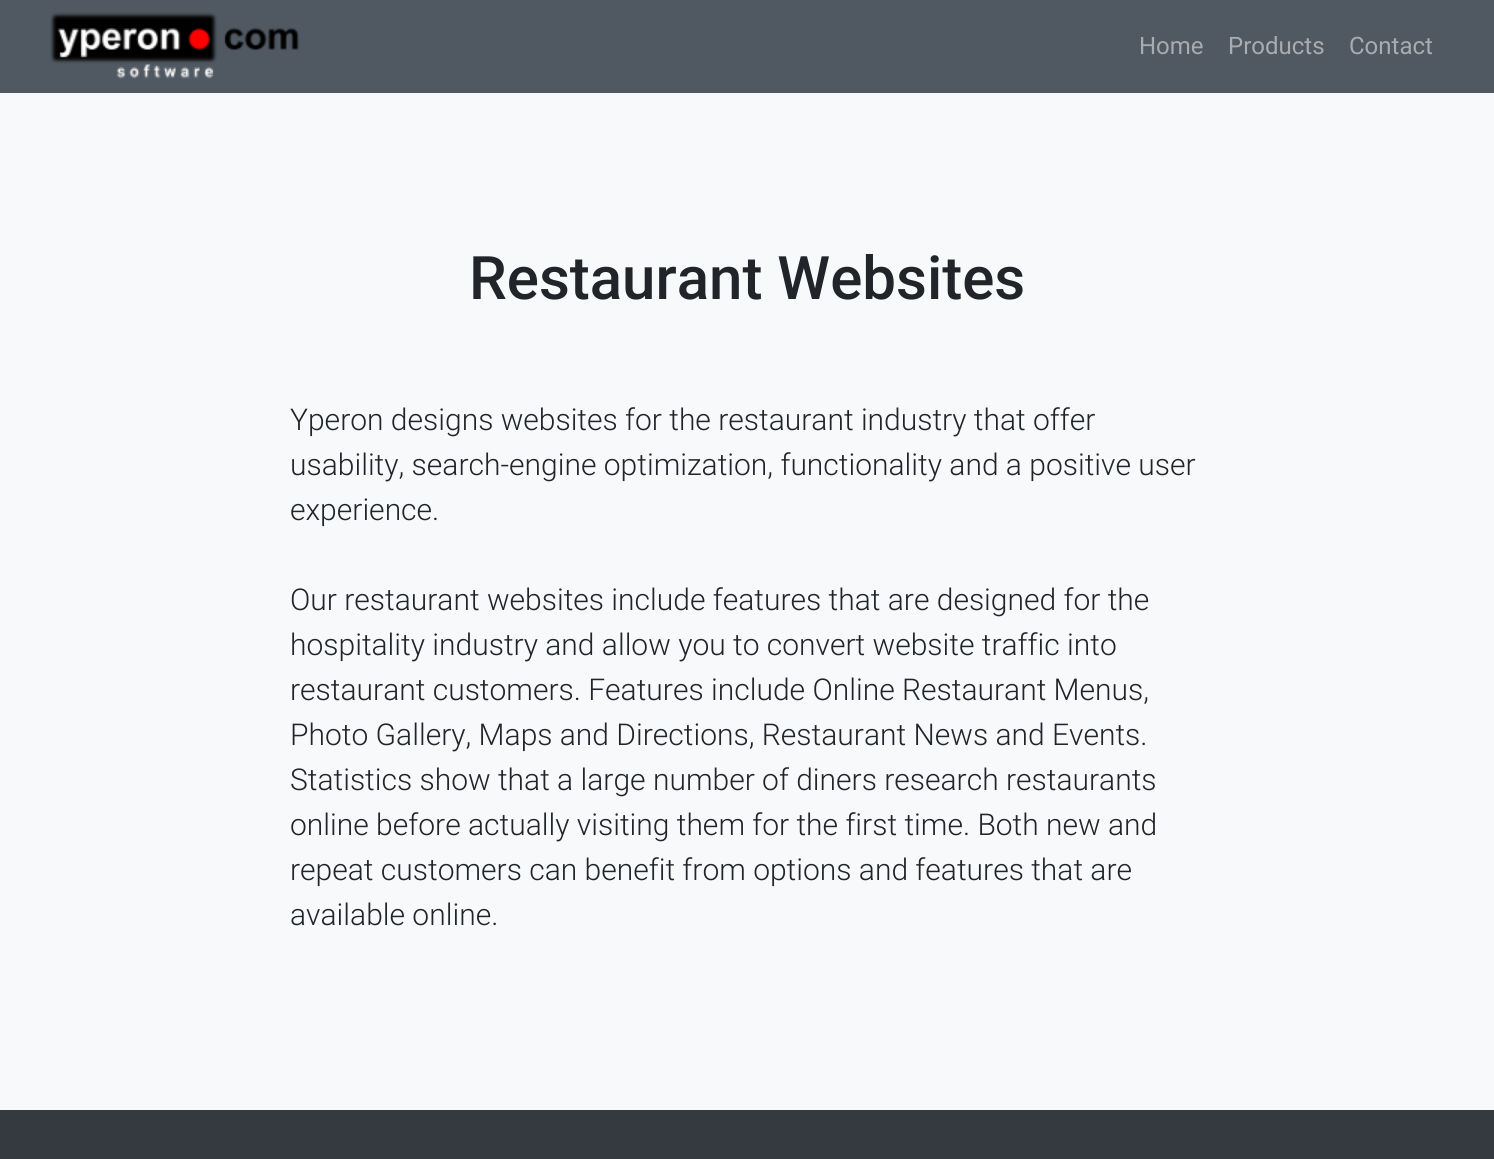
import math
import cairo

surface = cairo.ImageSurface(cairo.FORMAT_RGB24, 1494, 1159)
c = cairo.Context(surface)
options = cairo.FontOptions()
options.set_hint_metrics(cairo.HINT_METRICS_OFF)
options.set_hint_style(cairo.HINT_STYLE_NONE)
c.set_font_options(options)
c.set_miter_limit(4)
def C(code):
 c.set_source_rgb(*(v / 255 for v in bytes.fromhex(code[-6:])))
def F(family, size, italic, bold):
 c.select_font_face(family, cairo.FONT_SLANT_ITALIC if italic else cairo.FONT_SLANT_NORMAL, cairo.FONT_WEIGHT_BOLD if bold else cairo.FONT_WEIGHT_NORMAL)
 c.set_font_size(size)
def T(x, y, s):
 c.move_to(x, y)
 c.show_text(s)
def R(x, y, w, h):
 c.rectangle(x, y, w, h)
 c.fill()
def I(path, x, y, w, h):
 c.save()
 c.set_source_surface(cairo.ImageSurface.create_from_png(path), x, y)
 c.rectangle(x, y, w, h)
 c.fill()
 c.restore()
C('f8f9fa')
c.paint()
C('505861')
R(0,0,1494,93)
I('1.png',50,12,249,67)
F('Roboto',24,0,0)
C('a8acb0')
T(1139,54,'Home')
T(1228,54,'Products')
T(1349,54,'Contact')
F('Roboto Medium',60,0,0)
C('212529')
T(469,299,'Restaurant Websites')
F('Roboto Light',30,0,0)
T(290,430,'Yperon designs websites for the restaurant industry that offer')
T(290,475,'usability, search-engine optimization, functionality and a positive user')
T(290,520,'experience.')
T(290,610,'Our restaurant websites include features that are designed for the')
T(290,655,'hospitality industry and allow you to convert website traffic into')
T(290,700,'restaurant customers. Features include Online Restaurant Menus,')
T(290,745,'Photo Gallery, Maps and Directions, Restaurant News and Events.')
T(290,790,'Statistics show that a large number of diners research restaurants')
T(290,835,'online before actually visiting them for the first time. Both new and')
T(290,880,'repeat customers can benefit from options and features that are')
T(290,925,'available online.')
C('343a40')
R(0,1110,1494,49)
surface.write_to_png('o.png')
